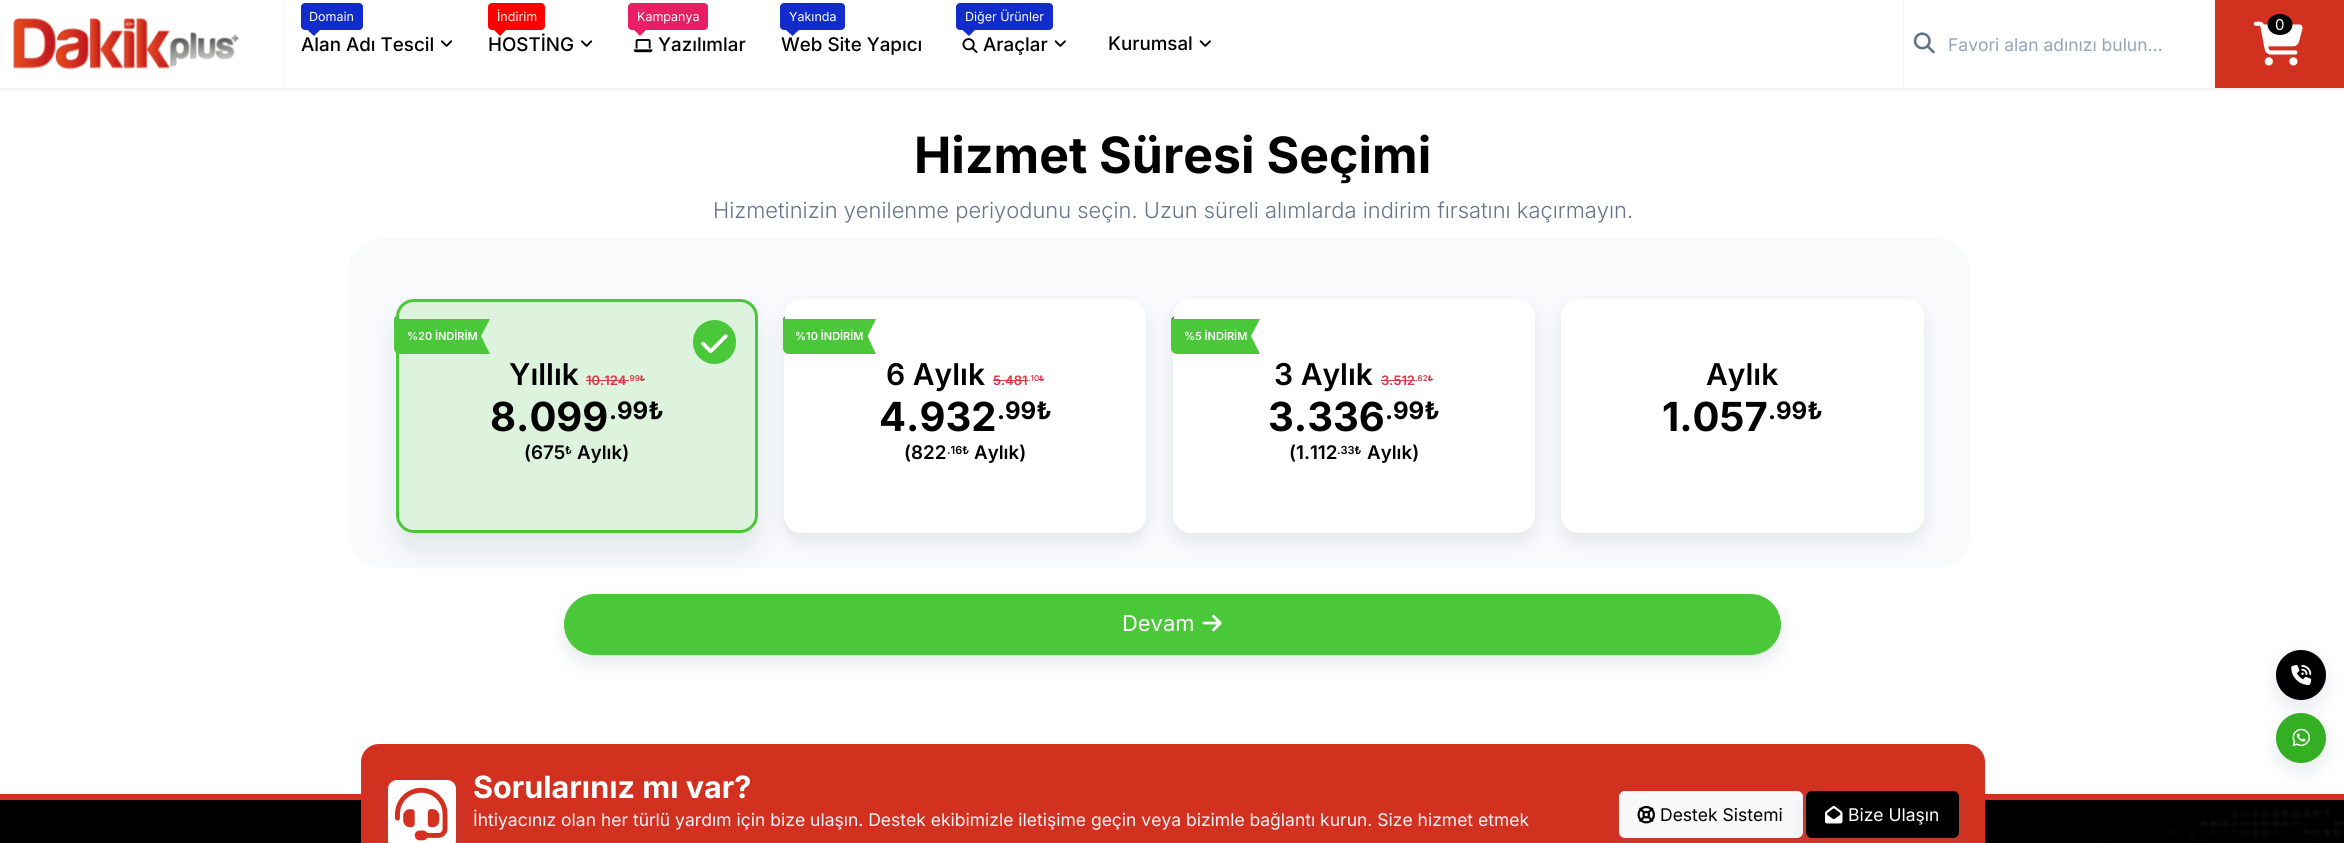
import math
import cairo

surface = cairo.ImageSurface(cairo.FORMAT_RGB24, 2344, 843)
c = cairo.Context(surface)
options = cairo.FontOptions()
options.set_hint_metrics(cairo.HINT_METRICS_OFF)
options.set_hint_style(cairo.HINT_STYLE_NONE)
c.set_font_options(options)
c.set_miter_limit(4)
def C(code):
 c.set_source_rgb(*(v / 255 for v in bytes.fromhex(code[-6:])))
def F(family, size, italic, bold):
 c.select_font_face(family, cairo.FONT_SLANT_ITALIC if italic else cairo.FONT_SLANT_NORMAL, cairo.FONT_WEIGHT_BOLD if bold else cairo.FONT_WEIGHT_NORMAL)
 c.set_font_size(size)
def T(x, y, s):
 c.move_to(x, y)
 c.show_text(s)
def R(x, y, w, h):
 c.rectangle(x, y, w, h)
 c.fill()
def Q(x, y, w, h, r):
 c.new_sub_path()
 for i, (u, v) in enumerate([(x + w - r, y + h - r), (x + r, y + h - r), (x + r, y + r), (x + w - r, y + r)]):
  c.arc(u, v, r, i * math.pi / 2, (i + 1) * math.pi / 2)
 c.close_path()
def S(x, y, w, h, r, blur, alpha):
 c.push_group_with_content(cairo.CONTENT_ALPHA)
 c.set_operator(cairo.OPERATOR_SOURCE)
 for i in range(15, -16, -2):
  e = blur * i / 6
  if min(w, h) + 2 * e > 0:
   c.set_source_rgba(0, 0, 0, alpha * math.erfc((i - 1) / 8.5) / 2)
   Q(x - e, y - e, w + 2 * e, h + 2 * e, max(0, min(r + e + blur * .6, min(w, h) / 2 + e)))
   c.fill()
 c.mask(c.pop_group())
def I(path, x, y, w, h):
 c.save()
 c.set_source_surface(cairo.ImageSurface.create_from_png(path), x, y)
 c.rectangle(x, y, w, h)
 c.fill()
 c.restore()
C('ffffff')
c.paint()
C('000000')
S(0,1,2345,88,0,2,.1)
C('ffffff')
R(0,0,1903,88)
I('1.png',13,18,226,52)
C('f1f5f9')
R(283,0,1,88)
C('122ccb')
Q(301,3,62,27,4)
c.fill()
F('Inter',12.5,0,0)
C('ffffff')
T(309,21,'Domain')
C('122ccb')
c.new_path()
c.move_to(307.5,30)
c.line_to(320,30)
c.line_to(314,36)
c.close_path()
c.fill()
F('Inter Medium',18.75,0,0)
C('000000')
T(301,51,'Alan Adı Tescil')
I('2.png',441,40,12,7)
C('ff0000')
Q(488,3,57,27,4)
c.fill()
F('Inter',12.5,0,0)
C('ffffff')
T(497,21,'İndirim')
F('Inter Medium',18.75,0,0)
C('000000')
T(488,51,'HOSTİNG')
C('ff0000')
c.new_path()
c.move_to(494,30)
c.line_to(506,30)
c.line_to(500,36)
c.close_path()
c.fill()
I('2.png',581,40,12,7)
C('e91e63')
Q(628,3,80,27,4)
c.fill()
F('Inter',12.5,0,0)
C('ffffff')
T(637,21,'Kampanya')
C('e91e63')
c.new_path()
c.move_to(634,30)
c.line_to(646,30)
c.line_to(640,36)
c.close_path()
c.fill()
I('3.png',633,39,20,14)
F('Inter Medium',18.75,0,0)
C('000000')
T(658,51,'Yazılımlar')
C('122ccb')
Q(780,3,65,27,4)
c.fill()
F('Inter',12.5,0,0)
C('ffffff')
T(789,21,'Yakında')
C('122ccb')
c.new_path()
c.move_to(786,30)
c.line_to(799,30)
c.line_to(792.5,36)
c.close_path()
c.fill()
F('Inter Medium',18.75,0,0)
C('000000')
T(781,51,'Web Site Yapıcı')
C('122ccb')
Q(956,3,97,27,4)
c.fill()
F('Inter',12.5,0,0)
C('ffffff')
T(965,21,'Diğer Ürünler')
C('122ccb')
c.new_path()
c.move_to(962.5,30)
c.line_to(975,30)
c.line_to(969,36)
c.close_path()
c.fill()
I('4.png',962,38,16,16)
F('Inter Medium',18.75,0,0)
C('000000')
T(983,51,'Araçlar')
I('5.png',1054,40,12,7)
T(1108,50,'Kurumsal')
I('5.png',1199,40,12,7)
C('d3311f')
R(2215,0,129,88)
I('6.png',2253,21,50,45)
C('000000')
c.new_path()
c.move_to(2280,14)
c.curve_to(2287,14,2292.5,18.5,2292.5,24.5)
c.curve_to(2292.5,30.5,2287,35,2280,35)
c.curve_to(2273,35,2267.5,30.5,2267.5,24.5)
c.curve_to(2267.5,18.5,2273,14,2280,14)
c.close_path()
c.fill()
F('Inter',15,0,0)
C('ffffff')
T(2275,30,'0')
R(1904,0,311,88)
I('7.png',1913,32,22,22)
C('f1f5f9')
R(1903,0,1,88)
F('Inter',17.5,0,0)
C('94a3b8')
T(1948,51,'Favori alan adınızı bulun...')
F('Inter',50,0,1)
C('000000')
T(914,173,'Hizmet Süresi Seçimi')
F('Inter Light',21.9,0,0)
C('64748b')
T(713,218,'Hizmetinizin yenilenme periyodunu seçin. Uzun süreli alımlarda indirim fırsatını kaçırmayın.')
C('f8fafc')
Q(348,238,1623,330,35)
c.fill()
c.save()
c.set_fill_rule(cairo.FILL_RULE_EVEN_ODD)
c.new_path()
c.move_to(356,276)
c.line_to(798,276)
c.line_to(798,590)
c.line_to(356,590)
c.close_path()
c.move_to(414,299)
c.line_to(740,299)
c.curve_to(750,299,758,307,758,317)
c.line_to(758,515)
c.curve_to(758,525,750,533,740,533)
c.line_to(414,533)
c.curve_to(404,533,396,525,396,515)
c.line_to(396,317)
c.curve_to(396,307,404,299,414,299)
c.close_path()
c.clip()
C('64748b')
S(396,316,362,234,18,13,.15)
c.restore()
c.set_source_rgba(0.294,0.784,0.224,0.15)
Q(397.5,300.5,359,231,16.5)
c.fill_preserve()
C('4bc839')
c.set_line_width(3)
c.stroke()
c.new_path()
c.move_to(394,319)
c.line_to(481,319)
c.line_to(481,354)
c.line_to(400,354)
c.curve_to(396.5,354,394,351.5,394,348)
c.close_path()
c.fill()
C('358c28')
c.new_path()
c.move_to(396,316)
c.line_to(396,319)
c.line_to(395,317.5)
c.close_path()
c.fill()
c.new_path()
c.move_to(396,319)
c.line_to(394,319)
c.line_to(395,317.5)
c.close_path()
c.fill()
F('Inter SemiBold',11,0,0)
C('ffffff')
T(407,340,'%20 İNDİRİM')
C('4bc839')
c.new_path()
c.move_to(481,319)
c.line_to(490,319)
c.line_to(481,336)
c.close_path()
c.move_to(490,354)
c.line_to(481,354)
c.line_to(481,336)
c.close_path()
c.fill()
Q(694.5,321.5,40,41,20)
c.fill_preserve()
c.stroke()
I('8.png',701,334,27,20)
F('Inter SemiBold',30,0,0)
C('000000')
T(509,385,'Yıllık')
F('Inter SemiBold',13,0,0)
C('dc3545')
T(586,385,'10.124')
R(586,380,42,1)
F('Inter SemiBold',8,0,0)
T(627,381,'.99₺')
R(640,379,5,1)
F('Inter',40,0,1)
C('000000')
T(490,431,'8.099')
F('Inter',24,0,1)
T(609,419,'.99₺')
F('Inter SemiBold',18.75,0,0)
T(524,459,'(675')
F('Inter SemiBold',11,0,0)
T(565,454,'₺')
F('Inter SemiBold',18.75,0,0)
T(577,459,'Aylık)')
C('64748b')
S(784,308,362,233,18,9,.15)
C('ffffff')
Q(785.5,300.5,359,231,16.5)
c.fill_preserve()
c.stroke()
C('4bc839')
c.new_path()
c.move_to(783,319)
c.line_to(868,319)
c.line_to(868,354)
c.line_to(789,354)
c.curve_to(785.5,354,783,351.5,783,348)
c.close_path()
c.fill()
C('358c28')
c.new_path()
c.move_to(785,316)
c.line_to(785,319)
c.line_to(784,317.5)
c.close_path()
c.fill()
c.new_path()
c.move_to(785,319)
c.line_to(782.5,319)
c.line_to(784,317.5)
c.close_path()
c.fill()
F('Inter SemiBold',11,0,0)
C('ffffff')
T(795,340,'%10 İNDİRİM')
C('4bc839')
c.new_path()
c.move_to(867.5,319)
c.line_to(876,319)
c.line_to(867.5,336)
c.close_path()
c.move_to(876,354)
c.line_to(867.5,354)
c.line_to(867.5,336)
c.close_path()
c.fill()
F('Inter SemiBold',30,0,0)
C('000000')
T(886,385,'6 Aylık')
F('Inter SemiBold',13,0,0)
C('dc3545')
T(993,385,'5.481')
R(993,380,35,1)
F('Inter SemiBold',8,0,0)
T(1028,381,'.10₺')
R(1039,379,5,1)
F('Inter',40,0,1)
C('000000')
T(879,431,'4.932')
F('Inter',24,0,1)
T(997,419,'.99₺')
F('Inter SemiBold',18.75,0,0)
T(904,459,'(822')
F('Inter SemiBold',11,0,0)
T(947,454,'.16₺')
F('Inter SemiBold',18.75,0,0)
T(974,459,'Aylık)')
C('64748b')
S(1173,308,362,233,18,9,.15)
C('ffffff')
Q(1174.5,300.5,359,231,16.5)
c.fill_preserve()
c.stroke()
C('4bc839')
c.new_path()
c.move_to(1171,319)
c.line_to(1251,319)
c.line_to(1251,354)
c.line_to(1177,354)
c.curve_to(1173.5,354,1171,351.5,1171,348)
c.close_path()
c.fill()
C('358c28')
c.new_path()
c.move_to(1174,316)
c.line_to(1174,319)
c.line_to(1172.5,317.5)
c.close_path()
c.fill()
c.new_path()
c.move_to(1174,319)
c.line_to(1171,319)
c.line_to(1172.5,317.5)
c.close_path()
c.fill()
F('Inter SemiBold',11,0,0)
C('ffffff')
T(1184,340,'%5 İNDİRİM')
C('4bc839')
c.new_path()
c.move_to(1251,319)
c.line_to(1260,319)
c.line_to(1251,336)
c.close_path()
c.move_to(1260,354)
c.line_to(1251,354)
c.line_to(1251,336)
c.close_path()
c.fill()
F('Inter SemiBold',30,0,0)
C('000000')
T(1274,385,'3 Aylık')
F('Inter SemiBold',13,0,0)
C('dc3545')
T(1381,385,'3.512')
R(1381,380,34,1)
F('Inter SemiBold',8,0,0)
T(1415,381,'.62₺')
R(1428,379,5,1)
F('Inter',40,0,1)
C('000000')
T(1268,431,'3.336')
F('Inter',24,0,1)
T(1385,419,'.99₺')
F('Inter SemiBold',18.75,0,0)
T(1289,459,'(1.112')
F('Inter SemiBold',11,0,0)
T(1337,454,'.33₺')
F('Inter SemiBold',18.75,0,0)
T(1367,459,'Aylık)')
C('64748b')
S(1561,308,363,233,18,9,.15)
C('ffffff')
Q(1562.5,300.5,360,231,16.5)
c.fill_preserve()
c.stroke()
F('Inter SemiBold',30,0,0)
C('000000')
T(1706,385,'Aylık')
F('Inter',40,0,1)
T(1662,431,'1.057')
F('Inter',24,0,1)
T(1768,419,'.99₺')
C('64748b')
S(564,603,1217,61,30.5,9,.15)
C('4bc839')
Q(564.5,594.5,1216,60,30)
c.fill_preserve()
c.set_line_width(1)
c.stroke()
F('Inter',21.9,0,0)
C('ffffff')
T(1122,631,'Devam')
I('9.png',1202,614,20,18)
C('000000')
R(0,800,2344,43)
C('d3311f')
R(0,794,2344,6)
Q(361,744,1624,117,18)
c.fill()
C('64748b')
S(388,789,68,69,9,9,.15)
C('ffffff')
Q(388,780,68,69,9)
c.fill()
I('10.png',395,787,53,54)
F('Inter',30.6,0,1)
T(473,798,'Sorularınız mı var?')
F('Inter',17.5,0,0)
C('f1f5f9')
T(473,826,'İhtiyacınız olan her türlü yardım için bize ulaşın. Destek ekibimizle iletişime geçin veya bizimle bağlantı kurun. Size hizmet etmek')
C('64748b')
S(1619,800,184,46,6,9,.15)
C('f8f9fa')
Q(1619.5,791.5,183,46,5.5)
c.fill_preserve()
c.stroke()
I('11.png',1637,805,18,19)
C('000000')
T(1660,821,'Destek Sistemi')
C('64748b')
S(1806,800,153,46,6,9,.15)
C('000000')
Q(1806.5,791.5,152,46,5.5)
c.fill_preserve()
c.stroke()
I('12.png',1825,805,18,19)
C('ffffff')
T(1848,821,'Bize Ulaşın')
I('13.png',2090,809,254,34)
C('64748b')
S(2276,659,50,50,25,9,.15)
C('000000')
c.arc(2301,675,25,0,2 * math.pi)
c.fill()
I('14.png',2291,665,21,20)
C('64748b')
S(2276,721,50,50,25,9,.15)
C('34af23')
c.arc(2301,738,25,0,2 * math.pi)
c.fill()
I('15.png',2292,728,18,19)
surface.write_to_png('o.png')
